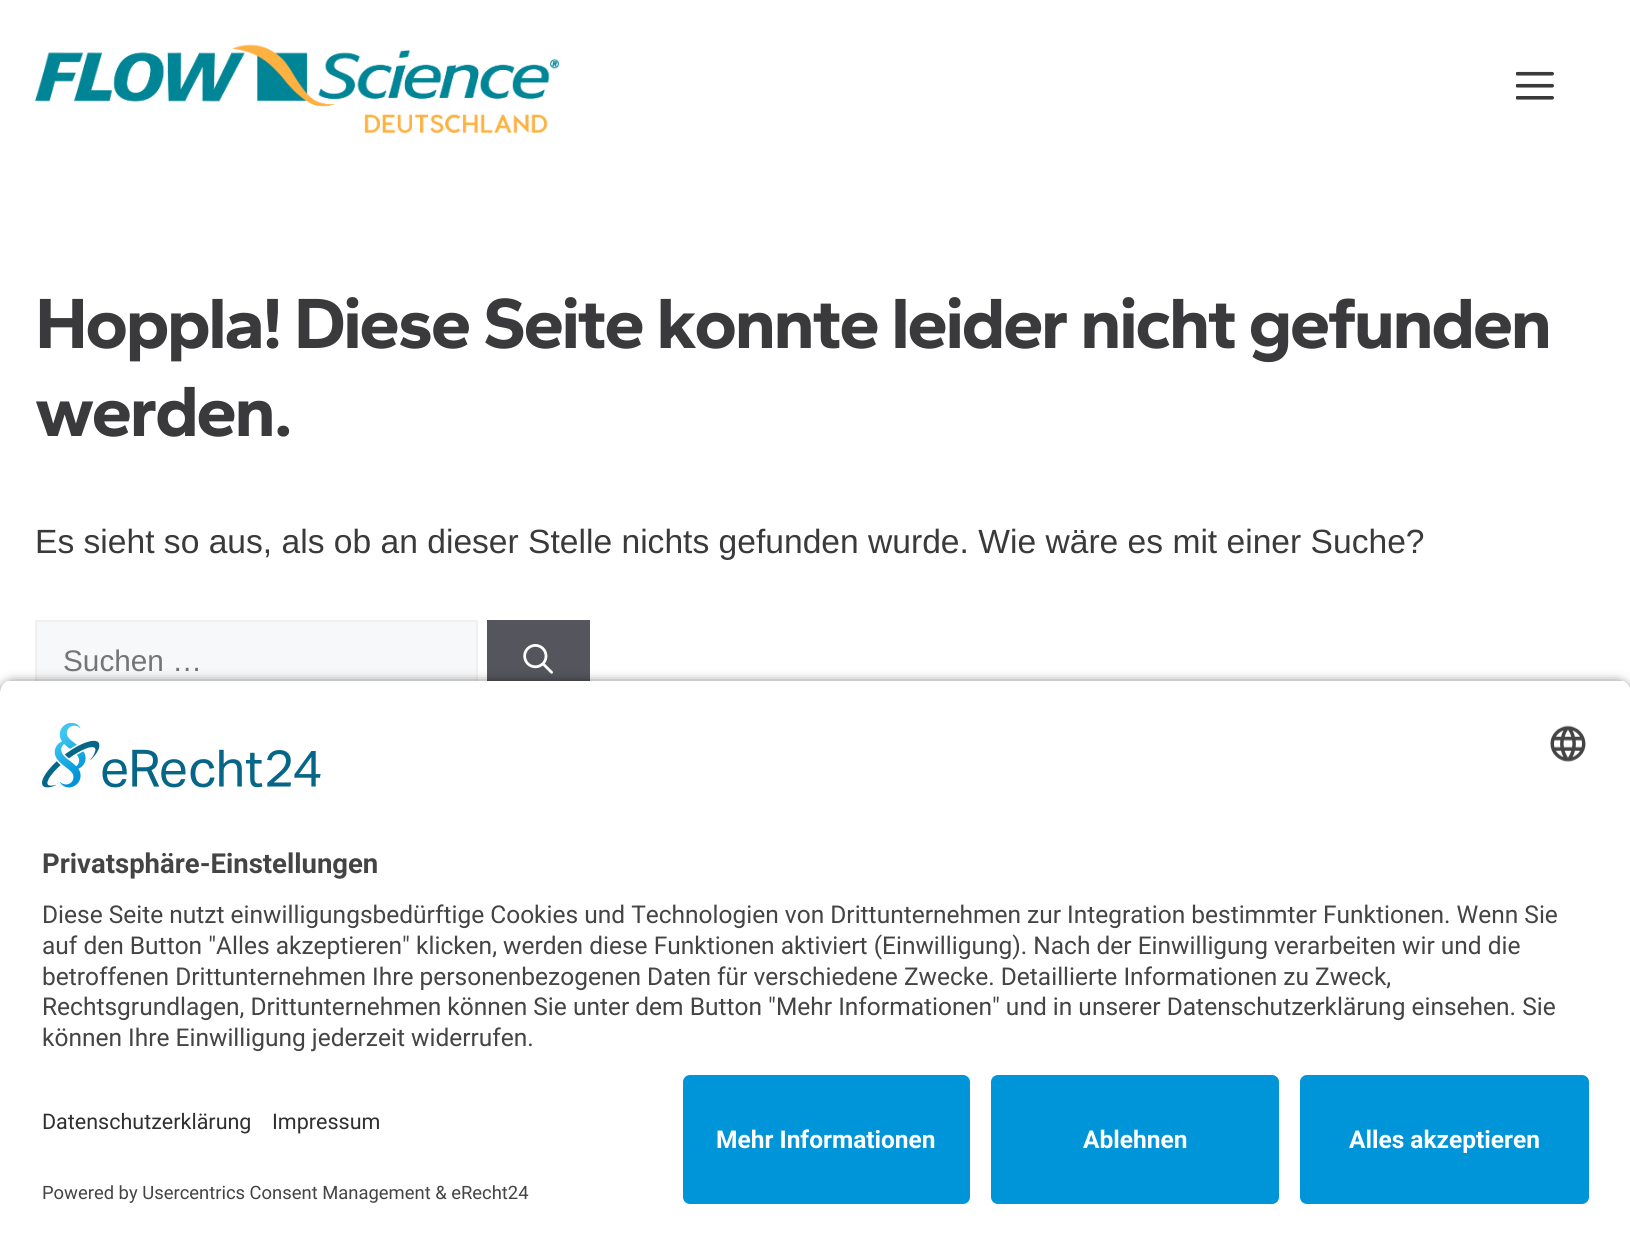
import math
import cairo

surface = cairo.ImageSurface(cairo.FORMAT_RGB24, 1630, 1245)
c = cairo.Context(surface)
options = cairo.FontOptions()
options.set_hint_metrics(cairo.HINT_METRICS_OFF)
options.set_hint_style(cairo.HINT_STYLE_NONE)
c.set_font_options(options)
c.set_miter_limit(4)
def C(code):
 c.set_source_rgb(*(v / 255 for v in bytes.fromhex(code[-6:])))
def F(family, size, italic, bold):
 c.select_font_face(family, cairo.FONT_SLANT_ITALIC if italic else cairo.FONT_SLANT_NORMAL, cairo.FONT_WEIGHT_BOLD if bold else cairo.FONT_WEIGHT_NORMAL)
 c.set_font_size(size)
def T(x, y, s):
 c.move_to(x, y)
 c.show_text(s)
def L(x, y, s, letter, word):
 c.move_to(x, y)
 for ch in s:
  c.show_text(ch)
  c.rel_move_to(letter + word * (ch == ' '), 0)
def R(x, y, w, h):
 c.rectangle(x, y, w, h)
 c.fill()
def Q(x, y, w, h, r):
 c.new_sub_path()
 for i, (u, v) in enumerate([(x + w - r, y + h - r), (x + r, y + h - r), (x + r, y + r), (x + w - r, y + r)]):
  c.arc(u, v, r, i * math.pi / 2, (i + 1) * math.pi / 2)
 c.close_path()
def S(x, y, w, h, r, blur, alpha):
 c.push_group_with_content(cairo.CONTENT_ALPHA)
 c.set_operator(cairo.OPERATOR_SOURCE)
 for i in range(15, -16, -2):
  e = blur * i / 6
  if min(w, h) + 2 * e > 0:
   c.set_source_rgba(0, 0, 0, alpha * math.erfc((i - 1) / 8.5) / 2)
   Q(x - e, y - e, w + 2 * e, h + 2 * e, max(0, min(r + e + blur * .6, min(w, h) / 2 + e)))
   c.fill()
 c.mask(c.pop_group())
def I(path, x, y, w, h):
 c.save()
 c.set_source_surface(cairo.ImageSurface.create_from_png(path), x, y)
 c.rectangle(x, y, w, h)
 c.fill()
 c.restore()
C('ffffff')
c.paint()
I('1.png',35,44,525,89)
I('2.png',1516,71,38,29)
F('Gantari',73.5,0,1)
C('3a3a3c')
L(35,348,'Hoppla! Diese Seite konnte leider nicht gefunden',-2.95,0)
L(35,436,'werden.',-2.95,0)
F('Liberation Sans',33.6,0,0)
T(35,553,'Es sieht so aus, als ob an dieser Stelle nichts gefunden wurde. Wie wäre es mit einer Suche?')
C('f7f8f9')
R(37,622,439,59)
c.rectangle(36,621,441,82)
C('f0f0f0')
c.stroke()
F('Liberation Sans',29.75,0,0)
C('757575')
T(63,671,'Suchen …')
C('55555e')
R(487,620,103,61)
I('3.png',523,644,30,30)
C('000000')
S(0,684,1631,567,14,6,.8)
c.save()
c.new_path()
c.move_to(14,679)
c.line_to(1617,679)
c.curve_to(1624.5,679,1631,685.5,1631,693)
c.line_to(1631,1061)
c.line_to(0,1061)
c.line_to(0,693)
c.curve_to(0,685.5,6.5,679,14,679)
c.close_path()
c.clip()
C('ffffff')
R(0,681,1630,380)
c.restore()
I('4.png',42,723,279,65)
I('5.png',1550,725,36,37)
F('Roboto',27.5,0,1)
C('444444')
T(42,873,'Privatsphäre-Einstellungen')
F('Roboto',24.5,0,0)
T(42,923,'Diese Seite nutzt einwilligungsbedürftige Cookies und Technologien von Drittunternehmen zur Integration bestimmter Funktionen. Wenn Sie')
T(42,954,'auf den Button "Alles akzeptieren" klicken, werden diese Funktionen aktiviert (Einwilligung). Nach der Einwilligung verarbeiten wir und die')
T(42,985,'betroffenen Drittunternehmen Ihre personenbezogenen Daten für verschiedene Zwecke. Detaillierte Informationen zu Zweck,')
T(42,1015,'Rechtsgrundlagen, Drittunternehmen können Sie unter dem Button "Mehr Informationen" und in unserer Datenschutzerklärung einsehen. Sie')
T(42,1046,'können Ihre Einwilligung jederzeit widerrufen.')
C('ffffff')
R(0,1061,1630,184)
F('Roboto',21.5,0,0)
C('303030')
T(42,1129,'Datenschutzerklärung')
T(272,1129,'Impressum')
F('Roboto',18.4,0,0)
C('444444')
T(42,1199,'Powered by Usercentrics Consent Management & eRecht24')
C('0094d8')
Q(683,1075,287,129,7)
c.fill()
F('Roboto',24.5,0,1)
C('ffffff')
T(716,1148,'Mehr Informationen')
C('0094d8')
Q(991,1075,288,129,7)
c.fill()
C('ffffff')
T(1083,1148,'Ablehnen')
C('0094d8')
Q(1300,1075,289,129,7)
c.fill()
C('ffffff')
T(1349,1148,'Alles akzeptieren')
surface.write_to_png('o.png')
